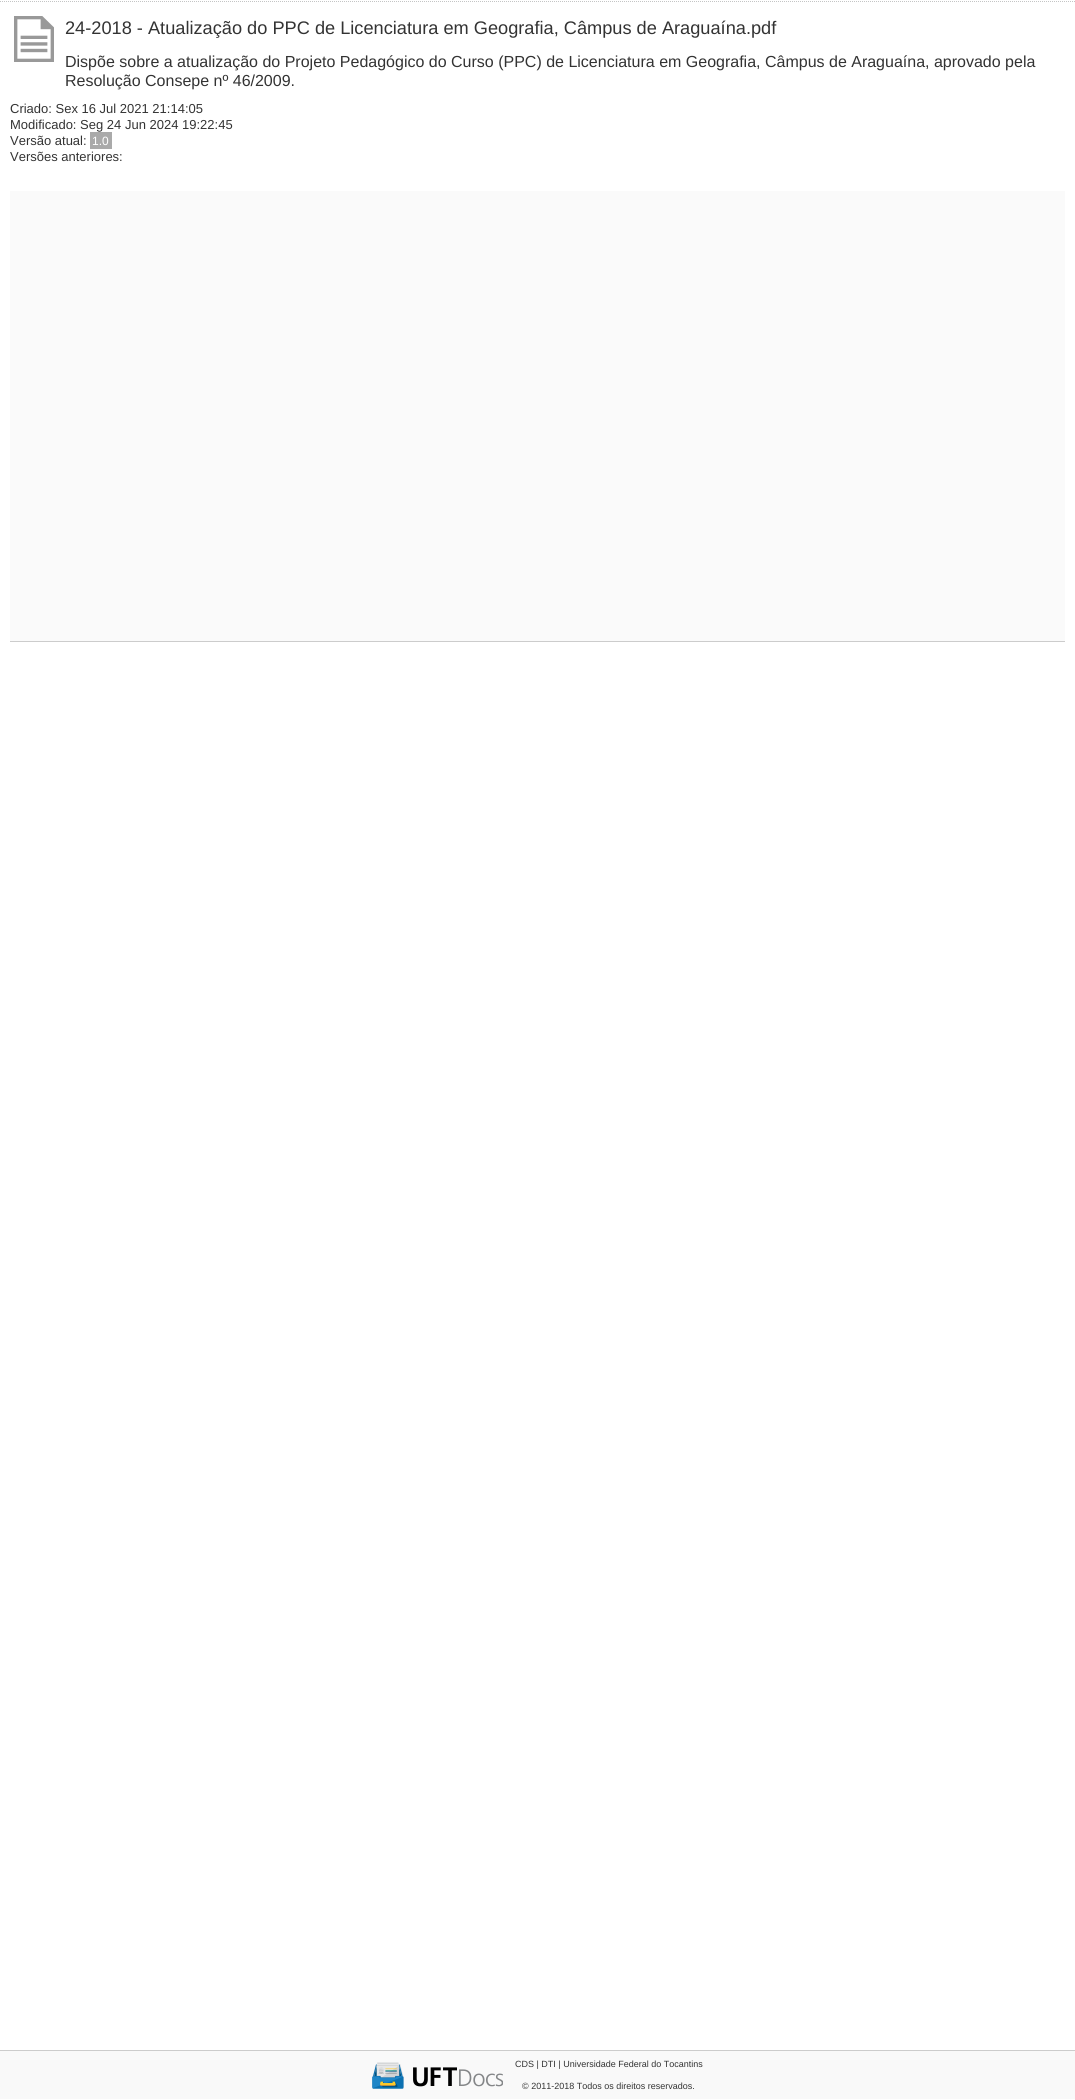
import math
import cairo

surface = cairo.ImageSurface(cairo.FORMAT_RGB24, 1075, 2100)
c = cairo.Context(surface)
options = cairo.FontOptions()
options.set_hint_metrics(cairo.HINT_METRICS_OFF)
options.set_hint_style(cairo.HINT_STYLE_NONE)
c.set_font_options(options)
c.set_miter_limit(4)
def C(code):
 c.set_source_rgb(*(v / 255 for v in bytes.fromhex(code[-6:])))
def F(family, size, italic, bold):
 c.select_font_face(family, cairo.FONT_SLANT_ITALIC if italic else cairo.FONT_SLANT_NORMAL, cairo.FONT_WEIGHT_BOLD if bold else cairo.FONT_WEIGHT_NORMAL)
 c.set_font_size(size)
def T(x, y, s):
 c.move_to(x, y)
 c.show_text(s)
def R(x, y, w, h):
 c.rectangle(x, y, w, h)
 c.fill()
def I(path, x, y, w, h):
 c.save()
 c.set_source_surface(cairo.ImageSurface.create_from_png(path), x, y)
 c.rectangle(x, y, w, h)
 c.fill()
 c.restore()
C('ffffff')
c.paint()
c.new_path()
c.move_to(0,1.5)
c.line_to(1075,1.5)
C('c4c5c5')
c.set_line_width(1)
c.set_dash([1,1])
c.stroke()
I('1.png',14,16,40,46)
F('Liberation Sans',18.2,0,0)
C('333333')
T(65,34,'24-2018 - Atualização do PPC de Licenciatura em Geografia, Câmpus de Araguaína.pdf')
F('Liberation Sans',16,0,0)
T(65,67,'Dispõe sobre a atualização do Projeto Pedagógico do Curso (PPC) de Licenciatura em Geografia, Câmpus de Araguaína, aprovado pela')
T(65,86,'Resolução Consepe nº 46/2009.')
F('Liberation Sans',13,0,0)
T(10,113,'Criado: Sex 16 Jul 2021 21:14:05')
T(10,129,'Modificado: Seg 24 Jun 2024 19:22:45')
T(10,145,'Versão atual:')
C('aaaaaa')
R(90,132,22,17)
F('Liberation Sans',12,0,0)
C('ffffff')
T(92,145,'1.0')
F('Liberation Sans',13,0,0)
C('333333')
T(10,161,'Versões anteriores:')
C('fafafa')
R(10,191,1055,450)
C('cccccc')
R(10,641,1055,1)
C('f9f9f9')
R(0,2051,1075,48)
C('cccccc')
R(0,2050,1075,1)
I('2.png',372,2062,131,27)
F('Liberation Sans',9,0,0)
C('333333')
T(515,2067,'CDS | DTI | Universidade Federal do Tocantins')
T(522,2089,'© 2011-2018 Todos os direitos reservados.')
surface.write_to_png('o.png')
